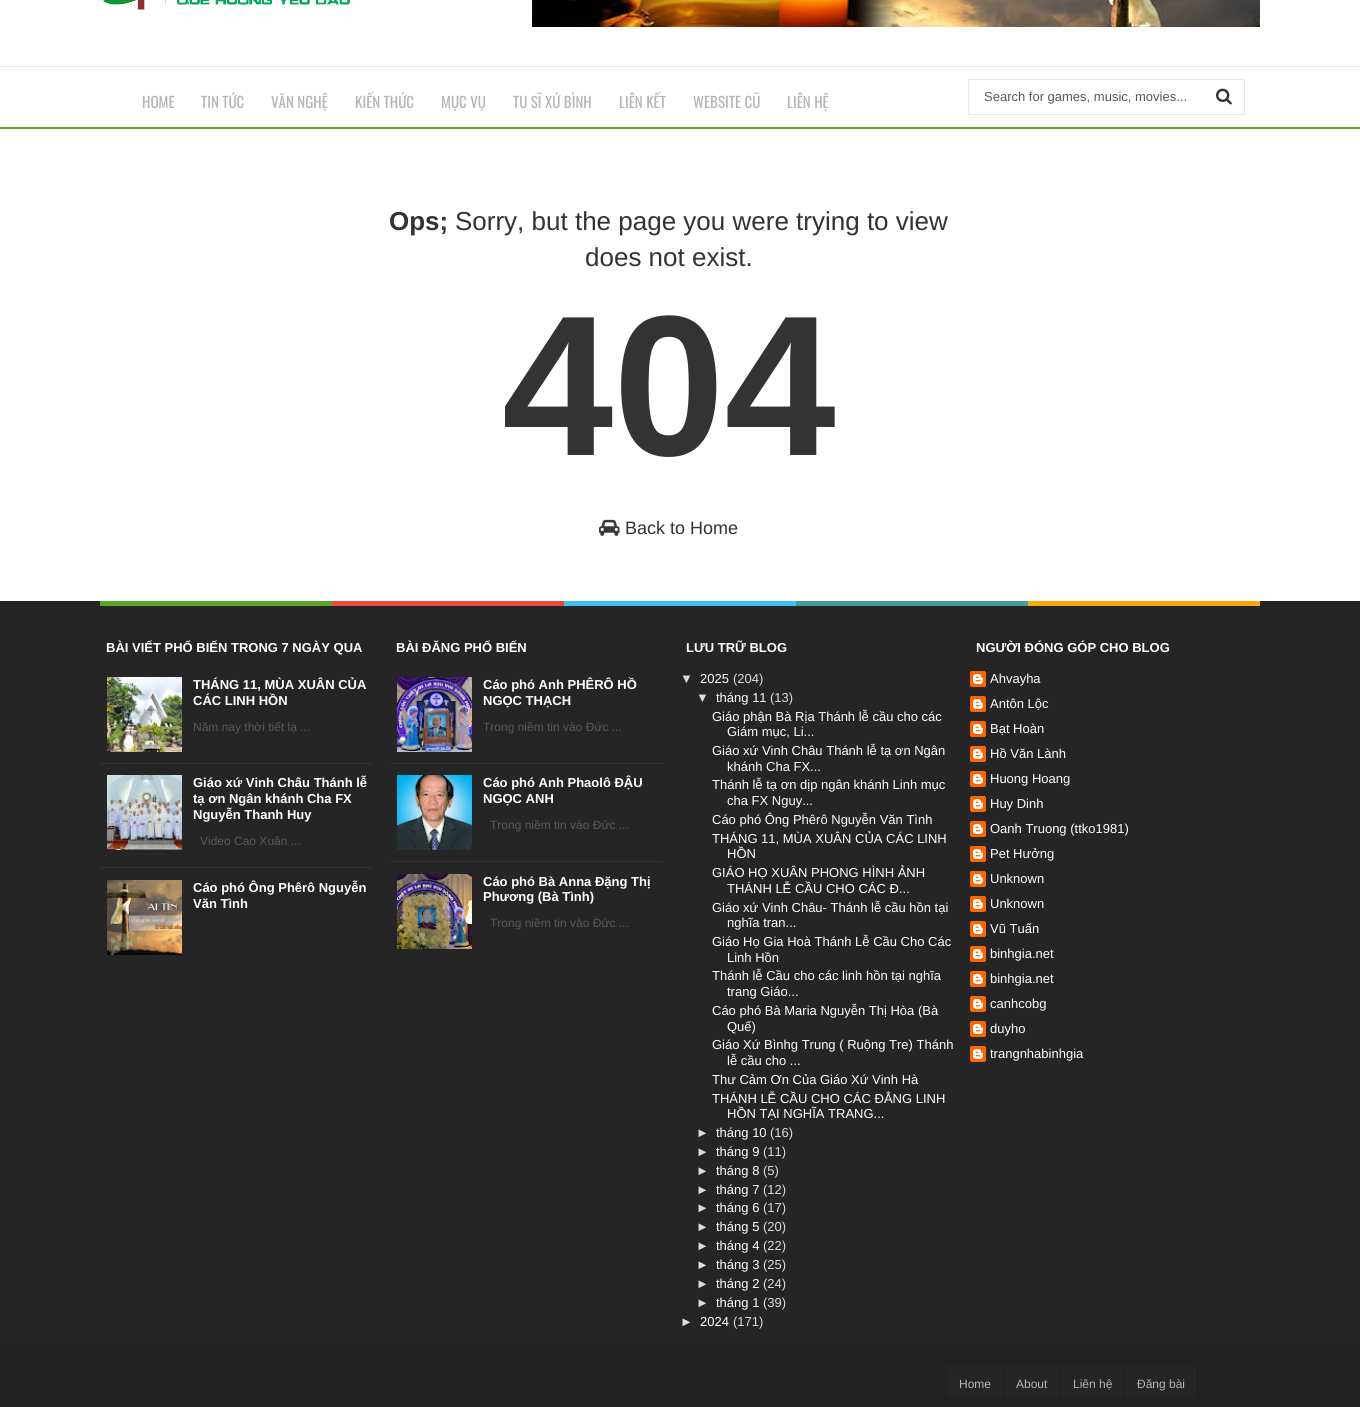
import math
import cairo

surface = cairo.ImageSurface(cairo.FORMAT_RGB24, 1360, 1407)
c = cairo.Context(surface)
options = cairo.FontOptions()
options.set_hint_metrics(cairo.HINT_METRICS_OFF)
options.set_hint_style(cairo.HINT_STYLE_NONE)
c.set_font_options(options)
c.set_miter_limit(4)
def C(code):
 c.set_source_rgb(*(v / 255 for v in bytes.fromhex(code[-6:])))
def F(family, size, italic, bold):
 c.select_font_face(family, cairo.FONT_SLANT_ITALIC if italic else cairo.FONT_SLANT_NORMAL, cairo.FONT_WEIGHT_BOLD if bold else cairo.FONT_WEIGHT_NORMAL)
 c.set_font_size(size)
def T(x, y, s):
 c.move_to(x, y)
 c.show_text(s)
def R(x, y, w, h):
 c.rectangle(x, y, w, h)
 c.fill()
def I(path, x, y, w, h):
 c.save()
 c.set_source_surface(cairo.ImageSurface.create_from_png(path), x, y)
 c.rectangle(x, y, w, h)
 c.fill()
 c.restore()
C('ffffff')
c.paint()
I('1.png',103,0,247,10)
I('2.png',532,0,728,27)
C('e8e8e8')
R(0,66,1360,1)
C('5aa628')
R(0,127,1360,2)
F('Oswald',15,0,0)
C('b6b5b5')
T(142,108,'HOME')
T(201,108,'TIN TỨC')
T(271,108,'VĂN NGHỆ')
T(355,108,'KIẾN THỨC')
T(441,108,'MỤC VỤ')
T(513,108,'TU SĨ XỨ BÌNH')
T(619,108,'LIÊN KẾT')
T(693,108,'WEBSITE CŨ')
T(787,108,'LIÊN HỆ')
c.rectangle(968.5,79.5,276,35)
C('e8e8e8')
c.set_line_width(1)
c.stroke()
F('Liberation Sans',13,0,0)
C('585858')
T(984,101,'Search for games, music, movies...')
I('3.png',1216,88,16,17)
F('Liberation Sans',26,0,1)
C('333333')
T(389,230,'Ops;')
F('Liberation Sans',26,0,0)
T(455,230,'Sorry, but the page you were trying to view')
T(585,266,'does not exist.')
F('Liberation Sans',200,0,1)
T(502,455,'404')
I('4.png',599,519,21,17)
F('Liberation Sans',18,0,0)
T(625,534,'Back to Home')
C('252525')
R(0,601,1360,743)
C('5aa628')
R(100,601,232,5)
C('f04a3c')
R(332,601,232,5)
C('40bff5')
R(564,601,232,5)
C('469b9c')
R(796,601,232,5)
C('ffa905')
R(1028,601,232,5)
F('Liberation Sans',13,0,1)
C('ffffff')
T(106,652,'BÀI VIẾT PHỔ BIẾN TRONG 7 NGÀY QUA')
C('333333')
R(100,763,272,1)
I('5.png',107,677,75,75)
C('ffffff')
T(193,689,'THÁNG 11, MÙA XUÂN CỦA')
T(193,705,'CÁC LINH HỒN')
F('Liberation Sans',12,0,0)
C('585858')
T(193,731,'Năm nay thời tiết lạ ...')
C('333333')
R(100,867,272,1)
I('6.png',107,775,75,75)
F('Liberation Sans',13,0,1)
C('ffffff')
T(193,787,'Giáo xứ Vinh Châu Thánh lễ')
T(193,803,'tạ ơn Ngân khánh Cha FX')
T(193,819,'Nguyễn Thanh Huy')
F('Liberation Sans',12,0,0)
C('585858')
T(200,845,'Video Cao Xuân ...')
I('7.png',107,880,75,75)
F('Liberation Sans',13,0,1)
C('ffffff')
T(193,892,'Cáo phó Ông Phêrô Nguyễn')
T(193,908,'Văn Tình')
T(396,652,'BÀI ĐĂNG PHỔ BIẾN')
C('333333')
R(390,763,272,1)
I('8.png',397,677,75,75)
C('ffffff')
T(483,689,'Cáo phó Anh PHÊRÔ HỒ')
T(483,705,'NGỌC THẠCH')
F('Liberation Sans',12,0,0)
C('585858')
T(483,731,'Trong niềm tin vào Đức ...')
C('333333')
R(390,861,272,1)
I('9.png',397,775,75,75)
F('Liberation Sans',13,0,1)
C('ffffff')
T(483,787,'Cáo phó Anh Phaolô ĐẬU')
T(483,803,'NGỌC ANH')
F('Liberation Sans',12,0,0)
C('585858')
T(490,829,'Trong niềm tin vào Đức ...')
I('10.png',397,874,75,75)
F('Liberation Sans',13,0,1)
C('ffffff')
T(483,886,'Cáo phó Bà Anna Đặng Thị')
T(483,901,'Phương (Bà Tình)')
F('Liberation Sans',12,0,0)
C('585858')
T(490,927,'Trong niềm tin vào Đức ...')
F('Liberation Sans',13,0,1)
C('ffffff')
T(686,652,'LƯU TRỮ BLOG')
F('Liberation Sans',13,0,0)
C('dddddd')
T(680,683,'▼')
C('ffffff')
T(700,683,'2025')
C('dddddd')
T(733,683,'(204)')
T(696,702,'▼')
C('ffffff')
T(716,702,'tháng 11')
C('dddddd')
T(770,702,'(13)')
C('ffffff')
T(712,721,'Giáo phận Bà Rịa Thánh lễ cầu cho các')
T(727,736,'Giám mục, Li...')
T(712,755,'Giáo xứ Vinh Châu Thánh lễ tạ ơn Ngân')
T(727,771,'khánh Cha FX...')
T(712,789,'Thánh lễ tạ ơn dịp ngân khánh Linh mục')
T(727,805,'cha FX Nguy...')
T(712,824,'Cáo phó Ông Phêrô Nguyễn Văn Tình')
T(712,843,'THÁNG 11, MÙA XUÂN CỦA CÁC LINH')
T(727,858,'HỒN')
T(712,877,'GIÁO HỌ XUÂN PHONG HÌNH ẢNH')
T(727,893,'THÁNH LỄ CẦU CHO CÁC Đ...')
T(712,912,'Giáo xứ Vinh Châu- Thánh lễ cầu hồn tại')
T(727,927,'nghĩa tran...')
T(712,946,'Giáo Họ Gia Hoà Thánh Lễ Cầu Cho Các')
T(727,962,'Linh Hồn')
T(712,980,'Thánh lễ Cầu cho các linh hồn tại nghĩa')
T(727,996,'trang Giáo...')
T(712,1015,'Cáo phó Bà Maria Nguyễn Thị Hòa (Bà')
T(727,1031,'Quế)')
T(712,1049,'Giáo Xứ Bìnhg Trung ( Ruộng Tre) Thánh')
T(727,1065,'lễ cầu cho ...')
T(712,1084,'Thư Cảm Ơn Của Giáo Xứ Vinh Hà')
T(712,1103,'THÁNH LỄ CẦU CHO CÁC ĐẲNG LINH')
T(727,1118,'HỒN TẠI NGHĨA TRANG...')
C('dddddd')
T(696,1137,'►')
C('ffffff')
T(716,1137,'tháng 10')
C('dddddd')
T(770,1137,'(16)')
T(696,1156,'►')
C('ffffff')
T(716,1156,'tháng 9')
C('dddddd')
T(763,1156,'(11)')
T(696,1175,'►')
C('ffffff')
T(716,1175,'tháng 8')
C('dddddd')
T(763,1175,'(5)')
T(696,1194,'►')
C('ffffff')
T(716,1194,'tháng 7')
C('dddddd')
T(763,1194,'(12)')
T(696,1212,'►')
C('ffffff')
T(716,1212,'tháng 6')
C('dddddd')
T(763,1212,'(17)')
T(696,1231,'►')
C('ffffff')
T(716,1231,'tháng 5')
C('dddddd')
T(763,1231,'(20)')
T(696,1250,'►')
C('ffffff')
T(716,1250,'tháng 4')
C('dddddd')
T(763,1250,'(22)')
T(696,1269,'►')
C('ffffff')
T(716,1269,'tháng 3')
C('dddddd')
T(763,1269,'(25)')
T(696,1288,'►')
C('ffffff')
T(716,1288,'tháng 2')
C('dddddd')
T(763,1288,'(24)')
T(696,1307,'►')
C('ffffff')
T(716,1307,'tháng 1')
C('dddddd')
T(763,1307,'(39)')
T(680,1326,'►')
C('ffffff')
T(700,1326,'2024')
C('dddddd')
T(733,1326,'(171)')
F('Liberation Sans',13,0,1)
C('ffffff')
T(976,652,'NGƯỜI ĐÓNG GÓP CHO BLOG')
I('11.png',970,671,16,16)
F('Liberation Sans',13,0,0)
T(990,683,'Ahvayha')
I('11.png',970,696,16,16)
T(990,708,'Antôn Lộc')
I('11.png',970,721,16,16)
T(990,733,'Bạt Hoàn')
I('11.png',970,746,16,16)
T(990,758,'Hồ Văn Lành')
I('11.png',970,771,16,16)
T(990,783,'Huong Hoang')
I('11.png',970,796,16,16)
T(990,808,'Huy Dinh')
I('11.png',970,821,16,16)
T(990,833,'Oanh Truong (ttko1981)')
I('11.png',970,846,16,16)
T(990,858,'Pet Hưởng')
I('11.png',970,871,16,16)
T(990,883,'Unknown')
I('11.png',970,896,16,16)
T(990,908,'Unknown')
I('11.png',970,921,16,16)
T(990,933,'Vũ Tuấn')
I('11.png',970,946,16,16)
T(990,958,'binhgia.net')
I('11.png',970,971,16,16)
T(990,983,'binhgia.net')
I('11.png',970,996,16,16)
T(990,1008,'canhcobg')
I('11.png',970,1021,16,16)
T(990,1033,'duyho')
I('11.png',970,1046,16,16)
T(990,1058,'trangnhabinhgia')
C('222222')
R(0,1344,1360,63)
C('1d1d1d')
R(1003,1365,1,32)
C('252525')
R(947,1365,56,32)
F('Liberation Sans',12,0,0)
C('b6b5b5')
T(959,1388,'Home')
C('1d1d1d')
R(1060,1365,1,32)
C('252525')
R(1004,1365,56,32)
C('b6b5b5')
T(1016,1388,'About')
C('1d1d1d')
R(1124,1365,1,32)
C('252525')
R(1061,1365,63,32)
C('b6b5b5')
T(1073,1388,'Liên hệ')
C('1d1d1d')
R(1197,1365,1,32)
C('252525')
R(1125,1365,72,32)
C('b6b5b5')
T(1137,1388,'Đăng bài')
surface.write_to_png('o.png')
